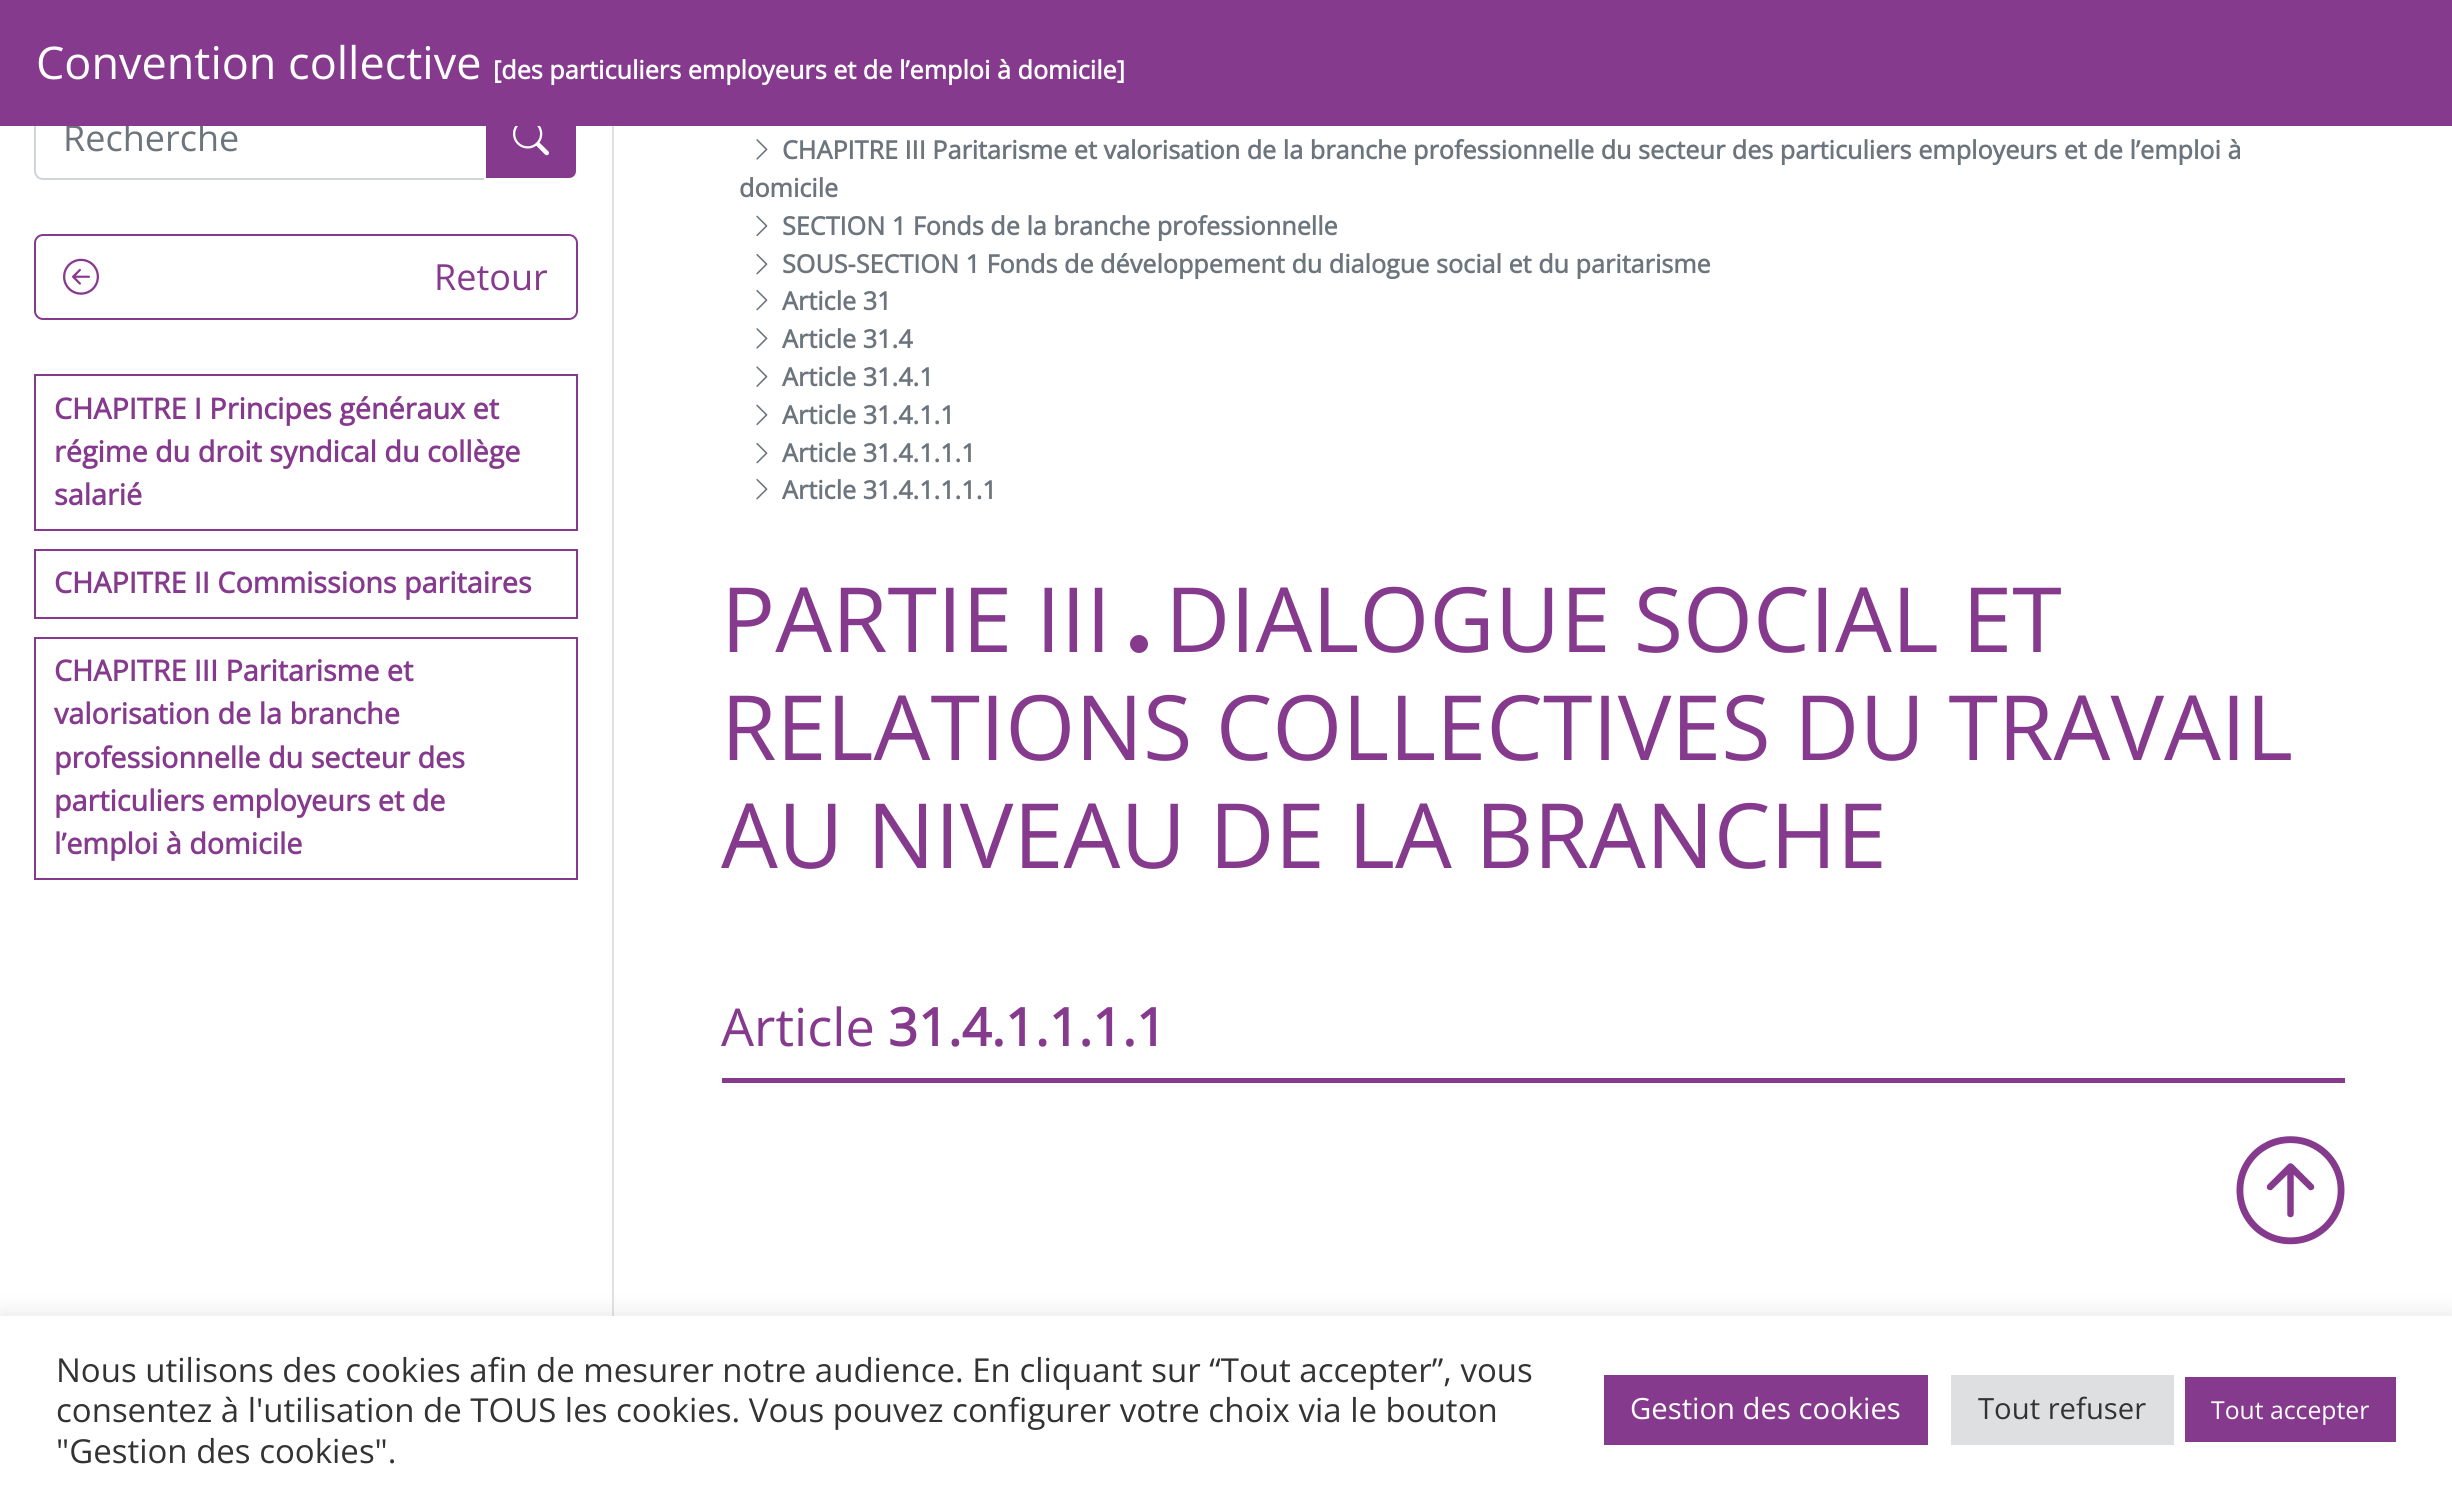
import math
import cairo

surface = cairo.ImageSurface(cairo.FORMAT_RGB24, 2452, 1500)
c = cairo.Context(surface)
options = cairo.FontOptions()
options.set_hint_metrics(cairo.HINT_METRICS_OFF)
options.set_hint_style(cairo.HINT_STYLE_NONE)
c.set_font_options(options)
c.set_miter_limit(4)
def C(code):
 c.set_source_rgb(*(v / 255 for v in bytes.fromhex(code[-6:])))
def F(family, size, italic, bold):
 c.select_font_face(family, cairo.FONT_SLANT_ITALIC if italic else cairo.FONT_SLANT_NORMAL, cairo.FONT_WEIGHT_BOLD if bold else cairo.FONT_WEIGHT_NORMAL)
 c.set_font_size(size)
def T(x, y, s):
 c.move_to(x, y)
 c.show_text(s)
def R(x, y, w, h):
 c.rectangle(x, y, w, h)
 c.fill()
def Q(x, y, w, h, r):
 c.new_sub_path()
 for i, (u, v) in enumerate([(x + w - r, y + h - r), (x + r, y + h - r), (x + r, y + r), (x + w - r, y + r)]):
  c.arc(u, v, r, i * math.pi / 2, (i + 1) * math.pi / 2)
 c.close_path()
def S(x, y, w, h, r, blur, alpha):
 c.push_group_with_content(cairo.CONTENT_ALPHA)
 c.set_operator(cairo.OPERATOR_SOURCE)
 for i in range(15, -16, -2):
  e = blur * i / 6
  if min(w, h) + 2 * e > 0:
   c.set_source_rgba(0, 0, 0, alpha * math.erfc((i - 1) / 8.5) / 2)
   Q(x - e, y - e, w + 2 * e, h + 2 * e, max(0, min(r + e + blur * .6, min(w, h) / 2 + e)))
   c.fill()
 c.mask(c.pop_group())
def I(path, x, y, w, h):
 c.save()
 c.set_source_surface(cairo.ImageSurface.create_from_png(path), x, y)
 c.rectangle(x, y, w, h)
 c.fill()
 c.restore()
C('ffffff')
c.paint()
c.new_path()
c.move_to(43,96)
c.line_to(485,96)
c.line_to(485,179)
c.line_to(43,179)
c.curve_to(38.5,179,35,175.5,35,171)
c.line_to(35,104)
c.curve_to(35,99.5,38.5,96,43,96)
c.close_path()
C('ced4da')
c.stroke()
F('Open Sans',36,0,0)
C('6c757d')
T(63,151,'Recherche')
C('863a8e')
c.new_path()
c.move_to(485,96)
c.line_to(569,96)
c.curve_to(573.5,96,577,99.5,577,104)
c.line_to(577,171)
c.curve_to(577,175.5,573.5,179,569,179)
c.line_to(485,179)
c.close_path()
c.fill_preserve()
C('ffffff')
c.stroke()
C('863a8e')
R(0,0,2452,126)
F('Open Sans',45,0,0)
C('ffffff')
T(36,79,'Convention collective')
F('Open Sans',25.2,0,1)
T(493,79,'[des particuliers employeurs et de l’emploi à domicile]')
C('dee2e6')
R(612,126,2,1190)
I('1.png',513,126,36,30)
Q(35,235,542,84,8)
C('863a8e')
c.stroke()
I('2.png',63,258,36,37)
F('Open Sans',36,0,0)
T(434,290,'Retour')
c.rectangle(35,375,542,155)
c.stroke()
F('Open Sans',28.75,0,1)
T(54,419,'CHAPITRE I Principes généraux et')
T(54,462,'régime du droit syndical du collège')
T(54,505,'salarié')
c.rectangle(35,550,542,68)
c.stroke()
T(54,593,'CHAPITRE II Commissions paritaires')
c.rectangle(35,638,542,241)
c.stroke()
T(54,681,'CHAPITRE III Paritarisme et')
T(54,724,'valorisation de la branche')
T(54,768,'professionnelle du secteur des')
T(54,811,'particuliers employeurs et de')
T(54,854,'l’emploi à domicile')
I('3.png',756,139,12,21)
F('Open Sans',25.2,0,1)
C('6c757d')
T(782,159,'CHAPITRE III Paritarisme et valorisation de la branche professionnelle du secteur des particuliers employeurs et de l’emploi à')
T(739,197,'domicile')
I('4.png',756,215,12,22)
T(782,235,'SECTION 1 Fonds de la branche professionnelle')
I('5.png',756,253,12,22)
T(782,273,'SOUS-SECTION 1 Fonds de développement du dialogue social et du paritarisme')
I('5.png',756,289,12,22)
T(782,310,'Article 31')
I('3.png',756,328,12,21)
T(782,348,'Article 31.4')
I('6.png',756,366,12,21)
T(782,386,'Article 31.4.1')
I('4.png',756,404,12,22)
T(782,424,'Article 31.4.1.1')
I('5.png',756,442,12,22)
T(782,462,'Article 31.4.1.1.1')
I('5.png',756,478,12,22)
T(782,499,'Article 31.4.1.1.1.1')
F('Open Sans',90,0,0)
C('863a8e')
T(721,652,'PARTIE III')
c.new_path()
c.arc(1139,644,9,0,2 * math.pi)
c.fill()
T(1165,652,'DIALOGUE SOCIAL ET')
T(721,760,'RELATIONS COLLECTIVES DU TRAVAIL')
T(721,868,'AU NIVEAU DE LA BRANCHE')
R(722,1078,1623,5)
F('Open Sans',52.25,0,0)
T(721,1046,'Article')
F('Open Sans',52.25,0,1)
T(888,1046,'31.4.1.1.1.1')
I('7.png',2236,1136,109,109)
C('acabab')
S(0,1314,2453,185,0,11,.3)
C('ffffff')
R(0,1316,2452,184)
F('Open Sans',33,0,0)
C('333333')
T(56,1382,'Nous utilisons des cookies afin de mesurer notre audience. En cliquant sur “Tout accepter”, vous')
T(56,1422,'consentez à l\'utilisation de TOUS les cookies. Vous pouvez configurer votre choix via le bouton')
T(56,1463,'"Gestion des cookies".')
C('863a8e')
R(1604,1375,324,70)
F('Open Sans',29.25,0,0)
C('ffffff')
T(1630,1419,'Gestion des cookies')
C('dedfe0')
R(1951,1375,223,70)
C('333333')
T(1978,1419,'Tout refuser')
C('863a8e')
R(2185,1377,211,65)
F('Open Sans',24.75,0,0)
C('ffffff')
T(2211,1419,'Tout accepter')
surface.write_to_png('o.png')
